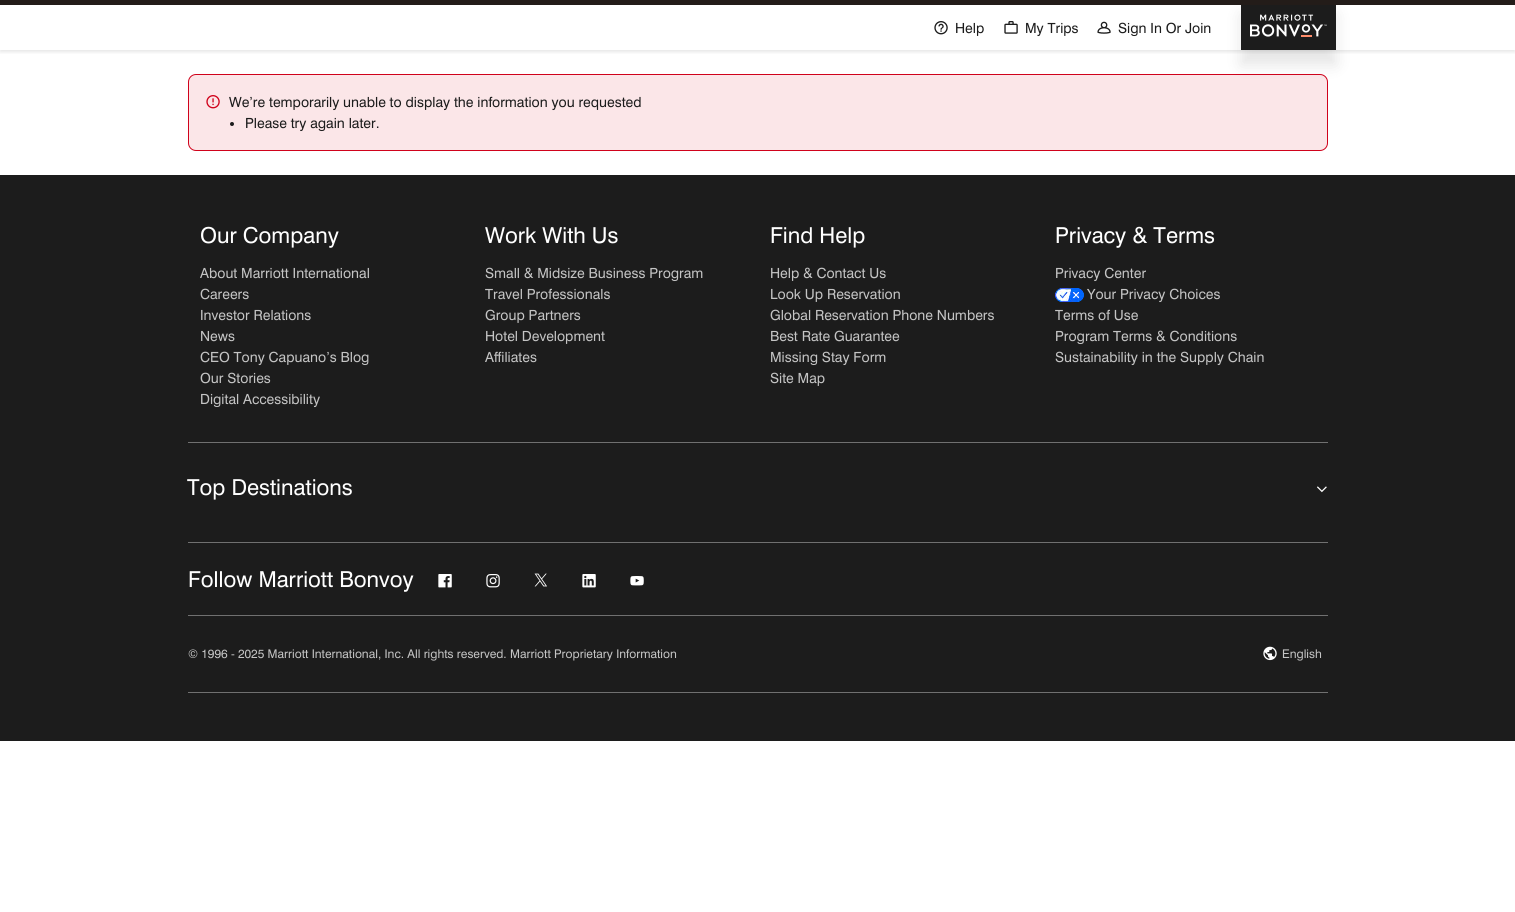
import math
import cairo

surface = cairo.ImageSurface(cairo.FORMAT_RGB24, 1515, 912)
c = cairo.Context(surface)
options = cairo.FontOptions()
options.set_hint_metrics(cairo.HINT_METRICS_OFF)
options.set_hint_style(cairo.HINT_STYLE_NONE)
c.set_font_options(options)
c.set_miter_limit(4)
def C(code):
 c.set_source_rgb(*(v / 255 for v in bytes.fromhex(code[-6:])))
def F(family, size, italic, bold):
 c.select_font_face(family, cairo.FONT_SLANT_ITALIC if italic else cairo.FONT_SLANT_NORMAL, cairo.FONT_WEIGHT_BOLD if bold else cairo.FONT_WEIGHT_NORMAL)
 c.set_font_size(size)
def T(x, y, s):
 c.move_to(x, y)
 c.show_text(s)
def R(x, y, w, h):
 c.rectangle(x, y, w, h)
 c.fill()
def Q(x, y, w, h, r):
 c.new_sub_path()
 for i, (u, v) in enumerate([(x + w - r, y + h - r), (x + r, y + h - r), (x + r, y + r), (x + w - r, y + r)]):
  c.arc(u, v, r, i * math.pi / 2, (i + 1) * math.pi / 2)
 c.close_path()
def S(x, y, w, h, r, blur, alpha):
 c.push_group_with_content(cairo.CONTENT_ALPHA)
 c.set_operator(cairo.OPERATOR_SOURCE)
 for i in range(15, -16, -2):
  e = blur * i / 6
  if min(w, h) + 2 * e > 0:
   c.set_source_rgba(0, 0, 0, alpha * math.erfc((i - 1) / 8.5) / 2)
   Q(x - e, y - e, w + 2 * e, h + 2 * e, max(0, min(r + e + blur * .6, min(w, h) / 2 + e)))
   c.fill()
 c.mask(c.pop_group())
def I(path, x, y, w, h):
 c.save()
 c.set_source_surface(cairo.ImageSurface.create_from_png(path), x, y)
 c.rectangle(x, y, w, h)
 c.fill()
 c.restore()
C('ffffff')
c.paint()
c.save()
c.rectangle(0,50,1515,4)
c.clip()
C('000000')
S(0,2,1515,50,0,2,.1)
c.restore()
C('fbe6e8')
Q(188.5,74.5,1139,76,7.5)
c.fill_preserve()
C('d0021b')
c.set_line_width(1)
c.stroke()
C('000000')
S(1241,15,95,50,0,7.5,.1)
C('231c19')
R(0,0,1515,5)
I('1.png',934,21,14,14)
F('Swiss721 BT',14,0,0)
C('1c1c1c')
T(955,33,'Help')
I('2.png',1004,21,14,13)
T(1025,33,'My Trips')
I('3.png',1097,21,14,13)
T(1118,33,'Sign In Or Join')
R(1241,5,95,45)
I('4.png',1250,14,77,23)
C('ff8d6b')
R(1301,35,11,2)
I('5.png',206,95,14,14)
C('1c1c1c')
T(229,107,'We’re temporarily unable to display the information you requested')
c.new_path()
c.arc(232,124,2,0,2 * math.pi)
c.fill()
T(245,128,'Please try again later.')
R(0,175,1515,566)
C('707070')
R(188,442,1140,1)
F('Swiss721 BT',22,0,0)
C('ffffff')
T(200,243,'Our Company')
F('Swiss721 BT',14,0,0)
C('c4c4c4')
T(200,278,'About Marriott International')
T(200,299,'Careers')
T(200,320,'Investor Relations')
T(200,341,'News')
T(200,362,'CEO Tony Capuano’s Blog')
T(200,383,'Our Stories')
T(200,404,'Digital Accessibility')
F('Swiss721 BT',22,0,0)
C('ffffff')
T(485,243,'Work With Us')
F('Swiss721 BT',14,0,0)
C('c4c4c4')
T(485,278,'Small & Midsize Business Program')
T(485,299,'Travel Professionals')
T(485,320,'Group Partners')
T(485,341,'Hotel Development')
T(485,362,'Affiliates')
F('Swiss721 BT',22,0,0)
C('ffffff')
T(770,243,'Find Help')
F('Swiss721 BT',14,0,0)
C('c4c4c4')
T(770,278,'Help & Contact Us')
T(770,299,'Look Up Reservation')
T(770,320,'Global Reservation Phone Numbers')
T(770,341,'Best Rate Guarantee')
T(770,362,'Missing Stay Form')
T(770,383,'Site Map')
F('Swiss721 BT',22,0,0)
C('ffffff')
T(1055,243,'Privacy & Terms')
F('Swiss721 BT',14,0,0)
C('c4c4c4')
T(1055,278,'Privacy Center')
I('6.png',1055,288,29,14)
T(1087,299,'Your Privacy Choices')
T(1055,320,'Terms of Use')
T(1055,341,'Program Terms & Conditions')
T(1055,362,'Sustainability in the Supply Chain')
F('Swiss721 BT',22,0,0)
C('ffffff')
T(187,495,'Top Destinations')
I('7.png',1317,486,10,7)
C('707070')
R(188,542,1140,1)
C('ffffff')
T(188,587,'Follow Marriott Bonvoy')
I('8.png',438,574,14,14)
I('9.png',486,574,14,14)
I('10.png',534,573,13,14)
I('11.png',582,574,14,14)
I('12.png',630,576,14,10)
C('707070')
R(188,615,1140,1)
R(188,692,1140,1)
F('Swiss721 BT',12,0,0)
C('c4c4c4')
T(188,658,'© 1996 - 2025 Marriott International, Inc. All rights reserved. Marriott Proprietary Information')
I('13.png',1263,646,14,15)
T(1282,658,'English')
surface.write_to_png('o.png')
